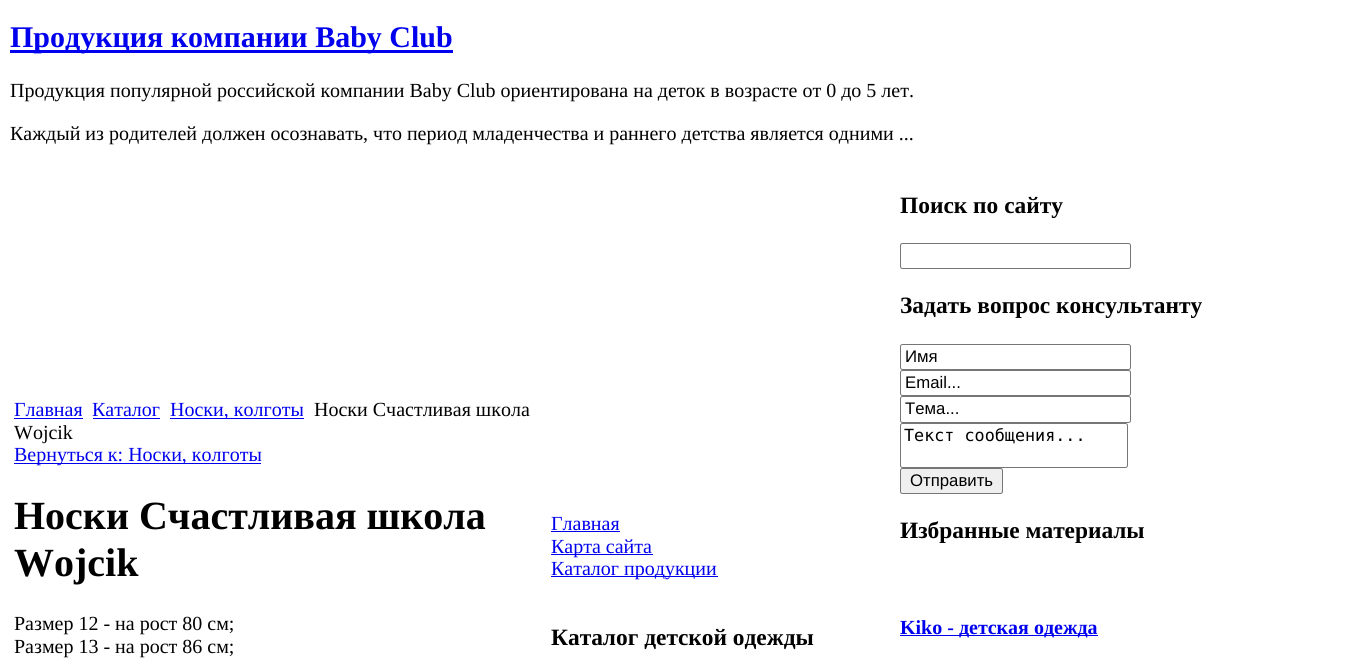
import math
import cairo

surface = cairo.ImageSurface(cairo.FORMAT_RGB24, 1348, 668)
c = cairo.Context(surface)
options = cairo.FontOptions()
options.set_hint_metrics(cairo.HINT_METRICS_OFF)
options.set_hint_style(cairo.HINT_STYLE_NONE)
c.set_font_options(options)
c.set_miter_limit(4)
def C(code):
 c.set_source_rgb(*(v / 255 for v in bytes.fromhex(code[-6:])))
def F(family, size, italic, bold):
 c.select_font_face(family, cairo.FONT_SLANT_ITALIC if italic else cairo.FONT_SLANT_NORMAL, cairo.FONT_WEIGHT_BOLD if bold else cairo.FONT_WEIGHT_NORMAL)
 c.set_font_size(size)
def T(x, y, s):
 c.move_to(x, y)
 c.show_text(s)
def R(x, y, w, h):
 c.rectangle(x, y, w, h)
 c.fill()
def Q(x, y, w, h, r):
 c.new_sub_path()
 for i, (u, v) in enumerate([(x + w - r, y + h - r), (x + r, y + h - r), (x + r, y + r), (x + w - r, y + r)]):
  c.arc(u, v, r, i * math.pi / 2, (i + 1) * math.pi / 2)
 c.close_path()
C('ffffff')
c.paint()
C('0000ee')
R(10,50,443,3)
F('Liberation Serif',30,0,1)
T(10,47,'Продукция компании Baby Club')
F('Liberation Serif',20,0,0)
C('000000')
T(10,97,'Продукция популярной российской компании Baby Club ориентирована на деток в возрасте от 0 до 5 лет.')
T(10,140,'Каждый из родителей должен осознавать, что период младенчества и раннего детства является одними ...')
C('0000ee')
T(14,416,'Главная')
R(14,418,69,1)
T(92,416,'Каталог')
R(93,418,67,1)
R(170,418,134,1)
T(170,416,'Носки, колготы')
C('000000')
T(314,416,'Носки Счастливая школа')
T(14,439,'Wojcik')
C('0000ee')
R(14,463,247,1)
T(14,461,'Вернуться к: Носки, колготы')
F('Liberation Serif',40,0,1)
C('000000')
T(14,529,'Носки Счастливая школа')
T(14,576,'Wojcik')
F('Liberation Serif',20,0,0)
T(14,630,'Размер 12 - на рост 80 см;')
T(14,653,'Размер 13 - на рост 86 см;')
C('0000ee')
T(551,530,'Главная')
R(551,531,69,1)
R(551,554,102,1)
T(551,553,'Карта сайта')
R(551,576,167,1)
T(551,575,'Каталог продукции')
F('Liberation Serif',23.4,0,1)
C('000000')
T(551,645,'Каталог детской одежды')
T(900,213,'Поиск по сайту')
Q(900.5,243.5,230,25,2)
C('767676')
c.set_line_width(1)
c.stroke()
C('000000')
T(900,313,'Задать вопрос консультанту')
Q(900.5,344.5,230,25,2)
C('767676')
c.stroke()
F('Liberation Sans',16.75,0,0)
C('000000')
T(905,362,'Имя')
Q(900.5,370.5,230,25,2)
C('767676')
c.stroke()
C('000000')
T(905,388,'Email...')
Q(900.5,396.5,230,26,2)
C('767676')
c.stroke()
C('000000')
T(905,414,'Тема...')
Q(900.5,423.5,227,44,2)
C('767676')
c.stroke()
F('DejaVu Sans Mono',16.75,0,0)
C('000000')
T(904,441,'Текст сообщения...')
C('efefef')
Q(900.5,468.5,102,25,2)
c.fill_preserve()
C('767676')
c.stroke()
F('Liberation Sans',16.75,0,0)
C('000000')
T(910,486,'Отправить')
F('Liberation Serif',23.4,0,1)
T(900,538,'Избранные материалы')
C('0000ee')
R(900,635,198,1)
F('Liberation Serif',20,0,1)
T(900,634,'Kiko - детская одежда')
surface.write_to_png('o.png')
